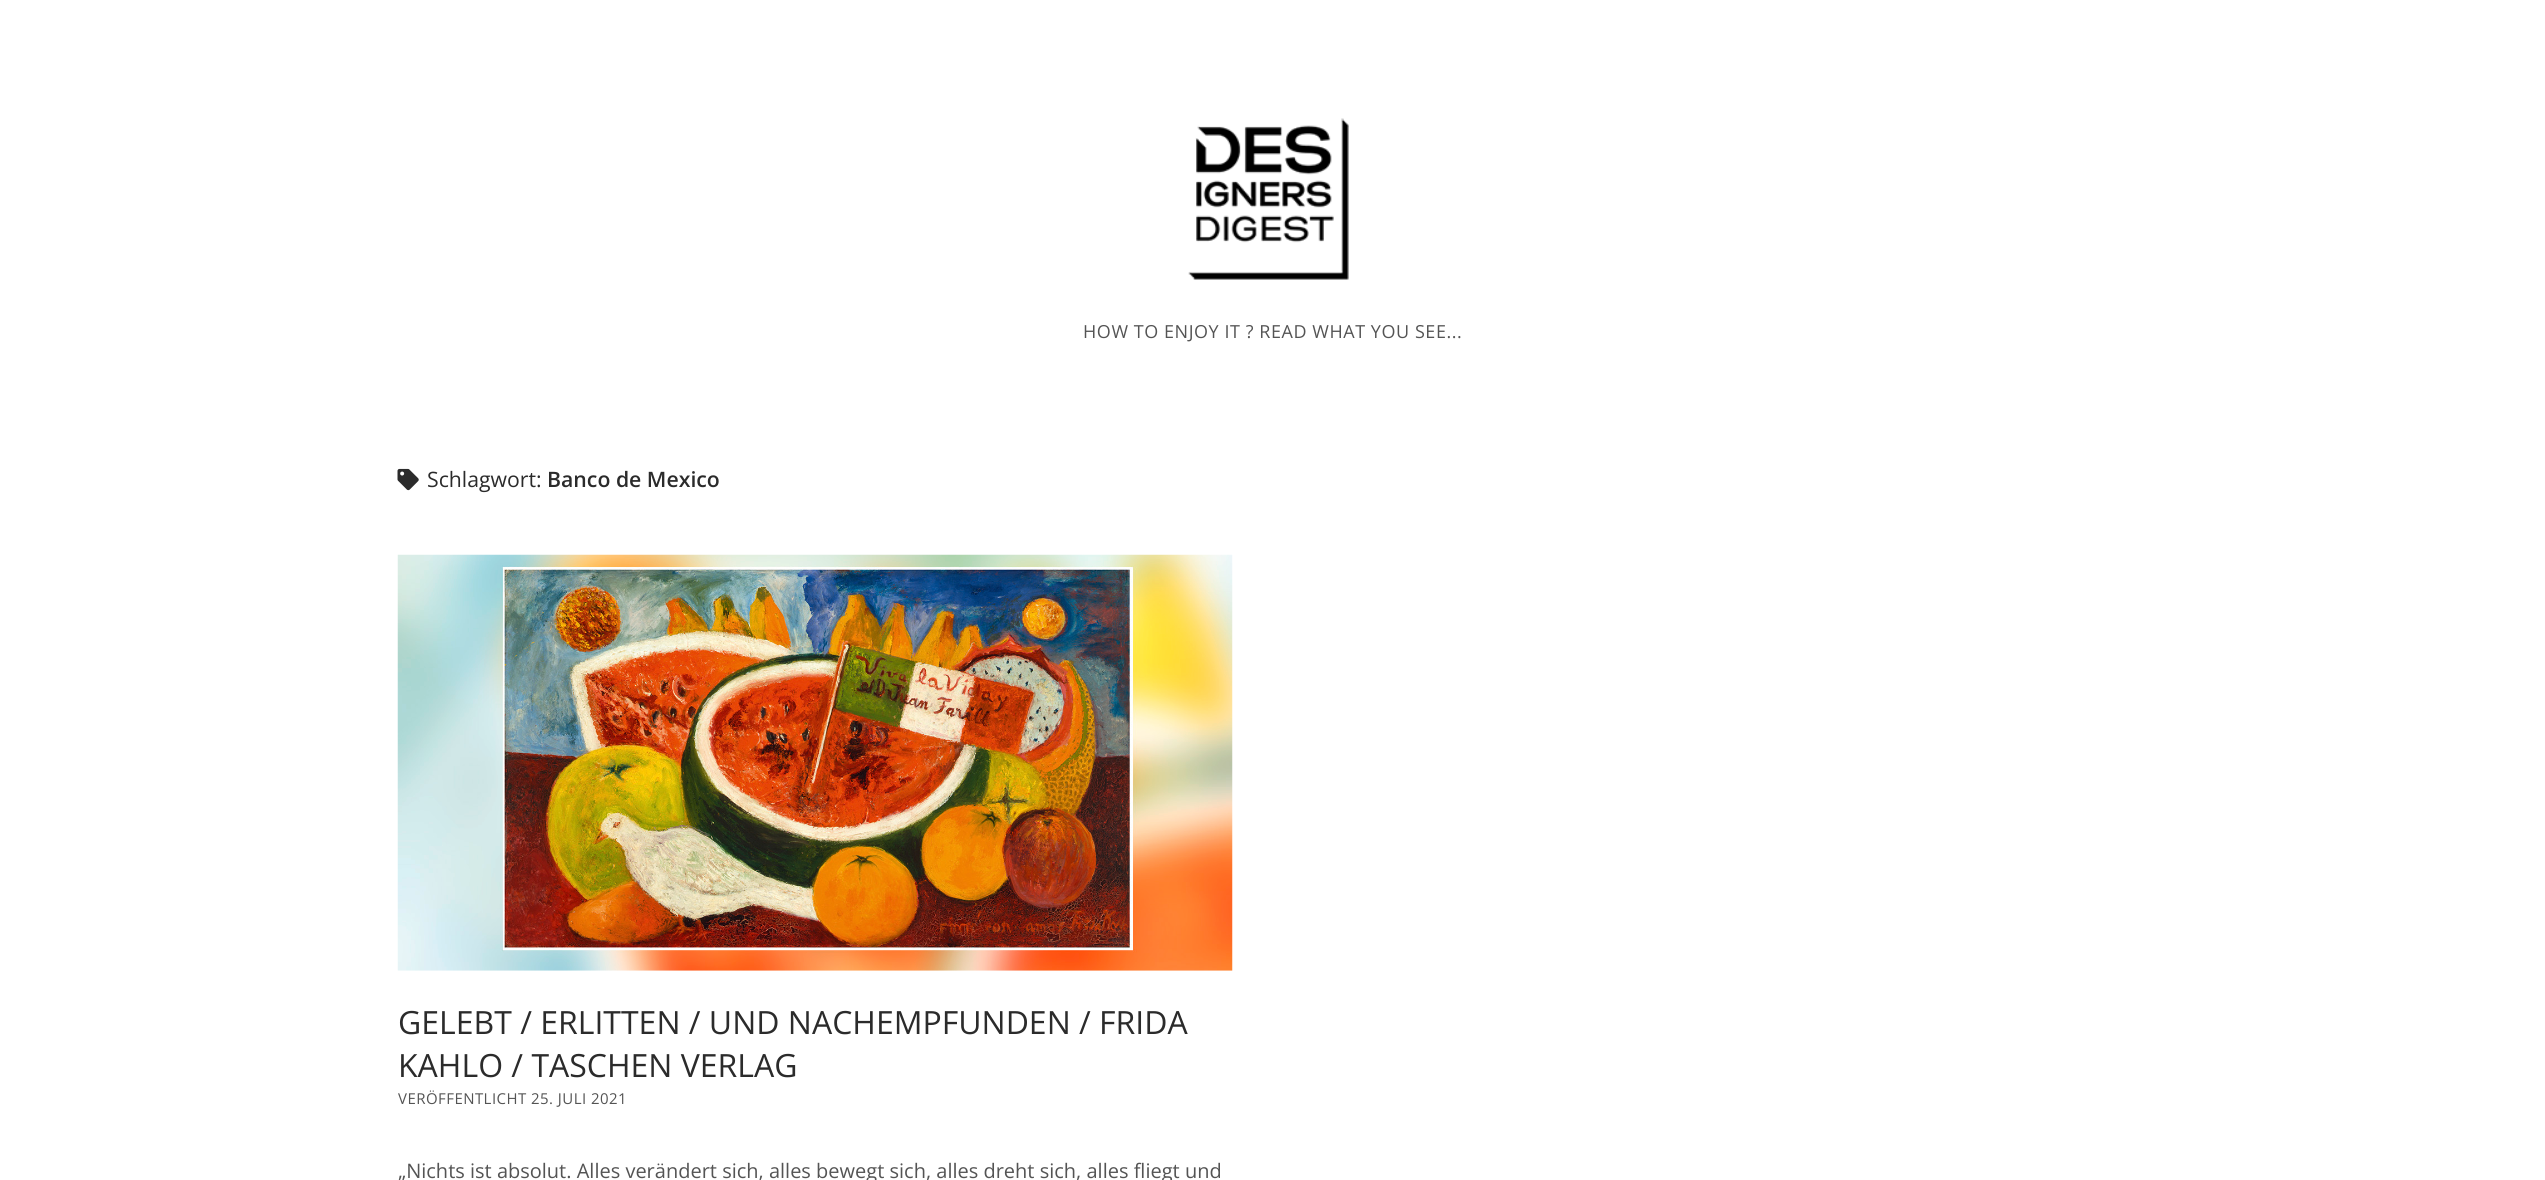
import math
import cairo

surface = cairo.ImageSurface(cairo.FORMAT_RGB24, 2545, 1180)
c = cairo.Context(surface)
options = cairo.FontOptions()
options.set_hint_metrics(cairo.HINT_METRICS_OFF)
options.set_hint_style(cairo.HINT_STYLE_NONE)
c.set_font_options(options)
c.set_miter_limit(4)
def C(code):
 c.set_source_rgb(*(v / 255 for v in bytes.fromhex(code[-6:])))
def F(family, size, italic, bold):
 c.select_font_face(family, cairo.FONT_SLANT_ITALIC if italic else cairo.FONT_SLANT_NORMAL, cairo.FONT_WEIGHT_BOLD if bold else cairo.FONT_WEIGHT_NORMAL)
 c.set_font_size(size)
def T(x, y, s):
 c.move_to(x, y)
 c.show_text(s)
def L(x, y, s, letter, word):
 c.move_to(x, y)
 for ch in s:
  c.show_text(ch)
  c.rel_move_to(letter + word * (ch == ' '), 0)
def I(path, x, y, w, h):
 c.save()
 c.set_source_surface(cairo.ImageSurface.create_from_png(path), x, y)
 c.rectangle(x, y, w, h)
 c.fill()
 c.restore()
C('ffffff')
c.paint()
I('1.png',1188,118,161,162)
F('Open Sans',18,0,0)
C('545454')
L(1083,338,'HOW TO ENJOY IT ? READ WHAT YOU SEE...',.55,0)
I('2.png',397,468,22,23)
F('Open Sans',21.25,0,0)
C('2b2b2b')
T(427,487,'Schlagwort:')
F('Open Sans SemiBold',21.25,0,0)
T(547,487,'Banco de Mexico')
I('3.png',397,554,836,417)
F('Open Sans',32,0,0)
T(398,1034,'GELEBT / ERLITTEN / UND NACHEMPFUNDEN / FRIDA')
T(398,1077,'KAHLO / TASCHEN VERLAG')
F('Open Sans',15,0,0)
C('545454')
L(398,1104,'VERÖFFENTLICHT 25. JULI 2021',.45,0)
F('Open Sans',20,0,0)
T(398,1178,'„Nichts ist absolut. Alles verändert sich, alles bewegt sich, alles dreht sich, alles fliegt und')
surface.write_to_png('o.png')
